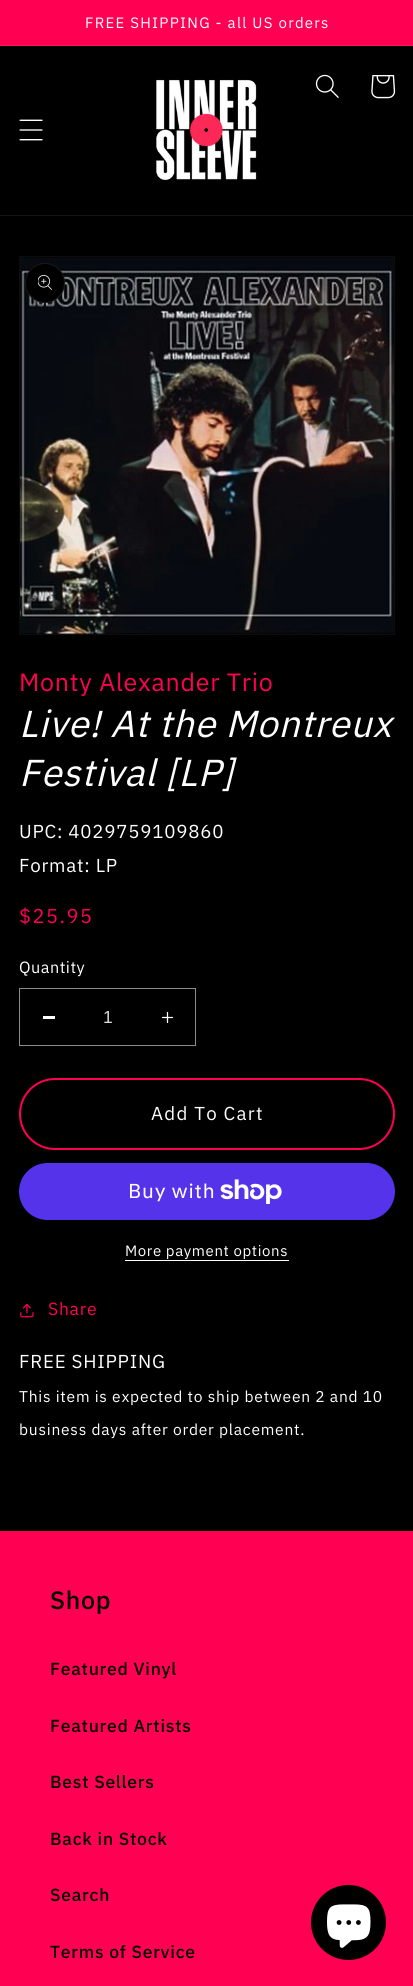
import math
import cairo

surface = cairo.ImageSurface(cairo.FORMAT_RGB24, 413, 1986)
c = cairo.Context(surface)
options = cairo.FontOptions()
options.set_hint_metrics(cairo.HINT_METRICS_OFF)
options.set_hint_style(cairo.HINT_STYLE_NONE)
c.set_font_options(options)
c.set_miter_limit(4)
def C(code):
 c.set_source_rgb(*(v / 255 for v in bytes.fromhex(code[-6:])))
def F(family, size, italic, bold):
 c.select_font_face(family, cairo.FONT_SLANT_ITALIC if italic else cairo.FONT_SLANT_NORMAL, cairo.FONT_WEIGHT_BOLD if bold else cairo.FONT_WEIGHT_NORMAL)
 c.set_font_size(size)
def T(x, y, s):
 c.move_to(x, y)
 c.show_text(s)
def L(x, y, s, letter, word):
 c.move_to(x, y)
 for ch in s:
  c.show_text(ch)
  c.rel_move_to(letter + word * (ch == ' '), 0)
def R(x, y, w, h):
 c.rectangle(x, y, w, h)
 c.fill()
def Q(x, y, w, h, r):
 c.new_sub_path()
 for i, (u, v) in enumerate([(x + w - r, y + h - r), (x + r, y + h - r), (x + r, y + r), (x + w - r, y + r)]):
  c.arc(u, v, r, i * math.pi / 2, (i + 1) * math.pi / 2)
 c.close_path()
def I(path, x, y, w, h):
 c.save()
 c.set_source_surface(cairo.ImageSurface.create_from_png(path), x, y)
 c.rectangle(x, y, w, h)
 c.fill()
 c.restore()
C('000000')
c.paint()
C('ff0053')
R(0,0,413,45)
C('ff1461')
R(0,45,413,1)
F('IBM Plex Sans',15,0,0)
C('ffffff')
L(85,28,'FREE SHIPPING - all US orders',1.25,0)
C('141414')
R(0,215,413,1)
I('1.png',19,119,24,22)
I('2.png',156,79,101,101)
I('3.png',315,74,24,24)
I('4.png',371,75,25,24)
c.rectangle(19.5,256.5,375,378)
C('0d0d0d')
c.set_line_width(1)
c.stroke()
I('5.png',20,257,374,377)
C('000000')
c.arc(45,283,20,0,2 * math.pi)
c.fill()
c.arc(45,283,19.5,0,2 * math.pi)
c.set_source_rgba(1,1,1,0.1)
c.stroke()
I('6.png',38,275,14,15)
F('IBM Plex Sans',25,0,0)
C('ff0053')
L(19,691,'Monty Alexander Trio',.75,0)
F('IBM Plex Sans',37.5,1,0)
C('ffffff')
L(19,737,'Live! At the Montreux',.75,0)
L(19,786,'Festival [LP]',.75,0)
F('IBM Plex Sans',18.75,0,0)
L(19,838,'UPC: 4029759109860',.75,0)
L(19,872,'Format: LP',.75,0)
F('IBM Plex Sans',20,0,0)
C('ff0053')
L(19,923,'$25.95',1.5,0)
F('IBM Plex Sans',16.25,0,0)
C('ffffff')
L(19,973,'Quantity',.5,0)
R(43,1016,12,3)
I('7.png',161,1011,13,13)
c.rectangle(19.5,988.5,176,57)
C('8c8c8c')
c.stroke()
F('Liberation Sans',17.5,0,0)
C('d9d9d9')
T(103,1023,'1')
Q(20,1079,374,70,35)
C('ff0053')
c.set_line_width(2)
c.stroke()
F('IBM Plex Sans',18.75,0,0)
C('ffffff')
L(151,1120,'Add To Cart',1.25,0)
C('5433eb')
Q(19,1163,376,57,28.5)
c.fill()
F('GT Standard',20,0,0)
C('ffffff')
L(128,1198,'Buy with',.75,0)
I('8.png',220,1179,62,25)
F('IBM Plex Sans',15,0,0)
L(125,1256,'More payment options',.6,0)
R(125,1260,164,1)
I('9.png',20,1303,14,15)
F('IBM Plex Sans',17.5,0,0)
C('ff0053')
L(48,1315,'Share',.75,0)
F('IBM Plex Sans',18.75,0,0)
C('ffffff')
L(19,1368,'FREE SHIPPING',.75,0)
F('IBM Plex Sans',15.6,0,0)
L(19,1402,'This item is expected to ship between 2 and 10',.75,0)
L(19,1435,'business days after order placement.',.75,0)
C('ff0053')
R(0,1531,413,455)
F('IBM Plex Sans Medium',25,0,0)
C('000000')
L(50,1609,'Shop',.75,0)
F('IBM Plex Sans Medium',17.5,0,0)
L(50,1675,'Featured Vinyl',.75,0)
L(50,1732,'Featured Artists',.75,0)
L(50,1788,'Best Sellers',.75,0)
L(50,1845,'Back in Stock',.75,0)
L(50,1901,'Search',.75,0)
L(50,1958,'Terms of Service',.75,0)
c.new_path()
c.arc(348.5,1922.5,37.5,0,2 * math.pi)
c.fill()
I('10.png',327,1904,44,44)
surface.write_to_png('o.png')
